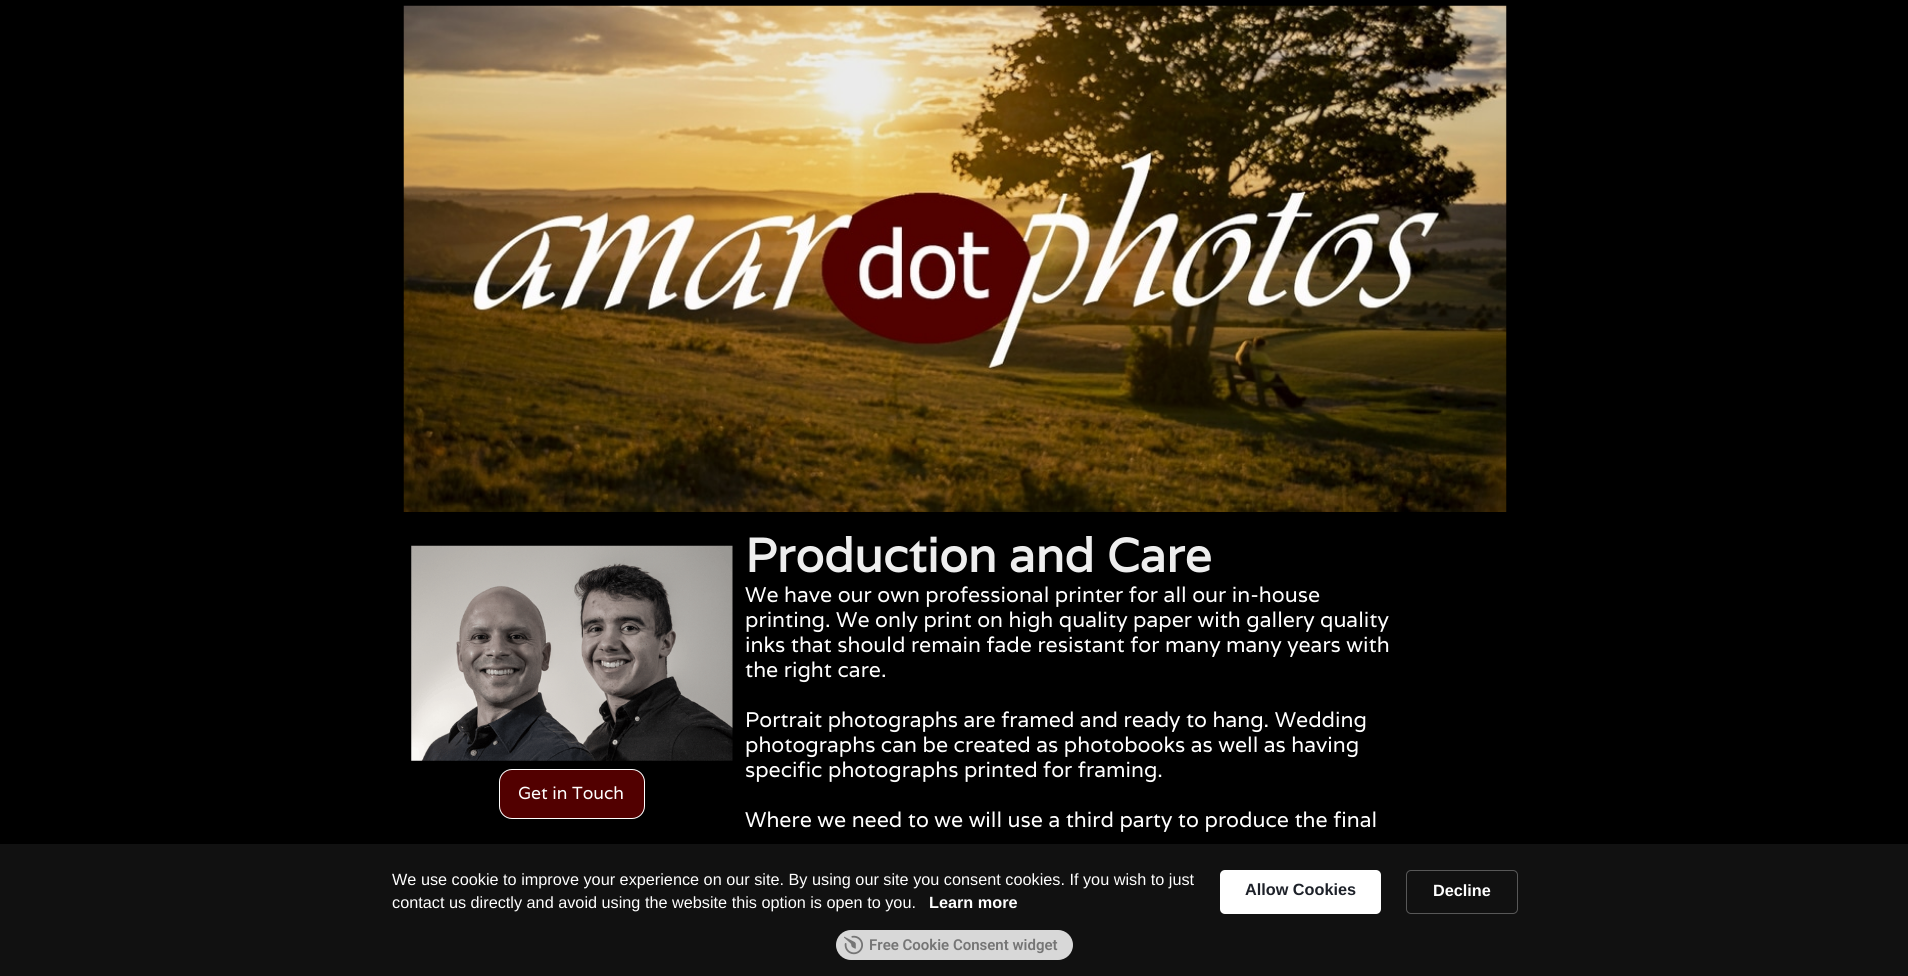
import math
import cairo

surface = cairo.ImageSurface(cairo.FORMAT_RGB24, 1908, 976)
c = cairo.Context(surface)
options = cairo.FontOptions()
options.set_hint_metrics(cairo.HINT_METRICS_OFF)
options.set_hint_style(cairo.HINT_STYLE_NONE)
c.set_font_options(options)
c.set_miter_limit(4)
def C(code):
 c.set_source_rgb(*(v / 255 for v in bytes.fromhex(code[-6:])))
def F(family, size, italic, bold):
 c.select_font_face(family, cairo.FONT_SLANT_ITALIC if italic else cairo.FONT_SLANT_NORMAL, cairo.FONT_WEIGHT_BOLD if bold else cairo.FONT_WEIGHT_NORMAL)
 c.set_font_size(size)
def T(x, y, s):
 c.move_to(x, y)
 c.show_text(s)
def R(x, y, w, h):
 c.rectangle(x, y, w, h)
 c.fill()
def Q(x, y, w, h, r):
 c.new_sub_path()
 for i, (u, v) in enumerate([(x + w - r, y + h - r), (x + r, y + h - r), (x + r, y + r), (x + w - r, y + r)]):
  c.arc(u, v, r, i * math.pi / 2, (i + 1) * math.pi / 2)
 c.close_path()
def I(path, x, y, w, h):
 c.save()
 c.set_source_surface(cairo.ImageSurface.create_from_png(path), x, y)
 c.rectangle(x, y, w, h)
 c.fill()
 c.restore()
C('000000')
c.paint()
I('1.png',403,5,1104,507)
I('2.png',411,545,322,216)
C('520000')
Q(499.5,769.5,145,49,12.5)
c.fill_preserve()
C('ffffff')
c.set_line_width(1)
c.stroke()
F('Varela',17.5,0,0)
T(518,799,'Get in Touch')
F('Varela',47.5,0,1)
C('eeeeee')
T(745,572,'Production and Care')
F('Varela',21.25,0,0)
C('ffffff')
T(745,602,'We have our own professional printer for all our in-house')
T(745,627,'printing. We only print on high quality paper with gallery quality')
T(745,652,'inks that should remain fade resistant for many many years with')
T(745,677,'the right care.')
T(745,727,'Portrait photographs are framed and ready to hang. Wedding')
T(745,752,'photographs can be created as photobooks as well as having')
T(745,777,'specific photographs printed for framing.')
T(745,827,'Where we need to we will use a third party to produce the final')
C('111111')
R(0,844,1908,132)
F('Liberation Sans',16.25,0,0)
C('ffffff')
T(392,885,'We use cookie to improve your experience on our site. By using our site you consent cookies. If you wish to just')
T(392,908,'contact us directly and avoid using the website this option is open to you.')
F('Liberation Sans',16.25,0,1)
T(929,908,'Learn more')
Q(1220,870,161,44,5)
c.fill()
C('1d2129')
T(1245,895,'Allow Cookies')
Q(1406.5,870.5,111,43,4.5)
C('585858')
c.stroke()
C('ffffff')
T(1433,896,'Decline')
C('d8d8d8')
Q(836,930,237,30,15)
c.fill()
I('3.png',844,935,19,20)
F('Roboto SemiBold',15,0,0)
C('757575')
T(869,950,'Free Cookie Consent widget')
surface.write_to_png('o.png')
